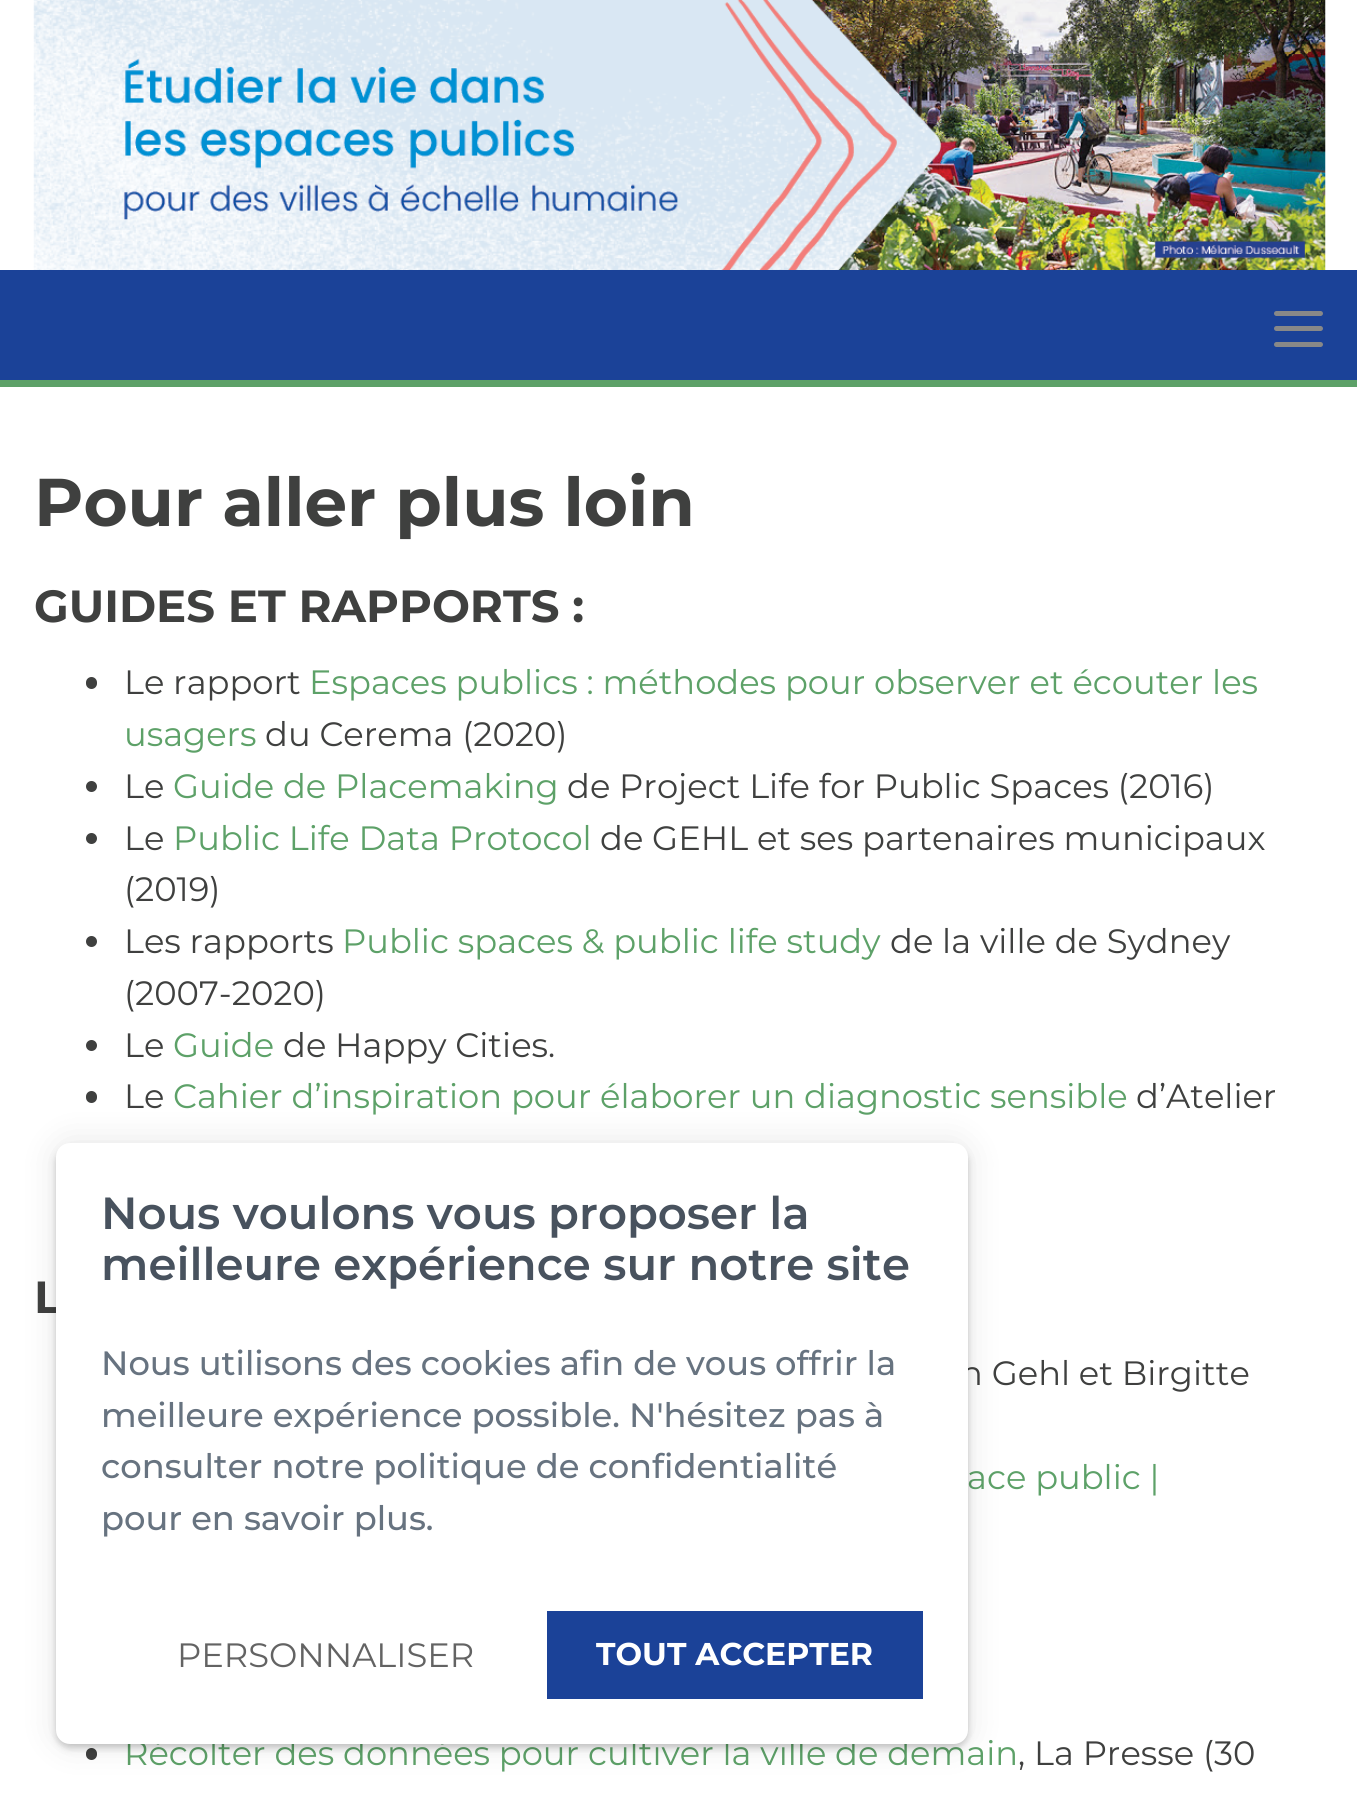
import math
import cairo

surface = cairo.ImageSurface(cairo.FORMAT_RGB24, 1357, 1798)
c = cairo.Context(surface)
options = cairo.FontOptions()
options.set_hint_metrics(cairo.HINT_METRICS_OFF)
options.set_hint_style(cairo.HINT_STYLE_NONE)
c.set_font_options(options)
c.set_miter_limit(4)
def C(code):
 c.set_source_rgb(*(v / 255 for v in bytes.fromhex(code[-6:])))
def F(family, size, italic, bold):
 c.select_font_face(family, cairo.FONT_SLANT_ITALIC if italic else cairo.FONT_SLANT_NORMAL, cairo.FONT_WEIGHT_BOLD if bold else cairo.FONT_WEIGHT_NORMAL)
 c.set_font_size(size)
def T(x, y, s):
 c.move_to(x, y)
 c.show_text(s)
def R(x, y, w, h):
 c.rectangle(x, y, w, h)
 c.fill()
def Q(x, y, w, h, r):
 c.new_sub_path()
 for i, (u, v) in enumerate([(x + w - r, y + h - r), (x + r, y + h - r), (x + r, y + r), (x + w - r, y + r)]):
  c.arc(u, v, r, i * math.pi / 2, (i + 1) * math.pi / 2)
 c.close_path()
def S(x, y, w, h, r, blur, alpha):
 c.push_group_with_content(cairo.CONTENT_ALPHA)
 c.set_operator(cairo.OPERATOR_SOURCE)
 for i in range(15, -16, -2):
  e = blur * i / 6
  if min(w, h) + 2 * e > 0:
   c.set_source_rgba(0, 0, 0, alpha * math.erfc((i - 1) / 8.5) / 2)
   Q(x - e, y - e, w + 2 * e, h + 2 * e, max(0, min(r + e + blur * .6, min(w, h) / 2 + e)))
   c.fill()
 c.mask(c.pop_group())
def I(path, x, y, w, h):
 c.save()
 c.set_source_surface(cairo.ImageSurface.create_from_png(path), x, y)
 c.rectangle(x, y, w, h)
 c.fill()
 c.restore()
C('ffffff')
c.paint()
I('1.png',33,0,1293,270)
C('1b4298')
R(0,270,1357,110)
C('888888')
Q(1274,311,49,5,2.5)
c.fill()
Q(1274,326,49,5,2.5)
c.fill()
Q(1274,342,49,5,2.5)
c.fill()
C('5da168')
R(0,380,1357,7)
F('Montserrat',67.5,0,1)
C('3f403f')
T(34,526,'Pour aller plus loin')
F('Montserrat',45,0,1)
T(34,622,'GUIDES ET RAPPORTS :')
Q(86,677,11,12,5.5)
c.fill()
F('Montserrat',33.75,0,0)
T(124,694,'Le rapport')
C('5da168')
T(309,694,'Espaces publics : méthodes pour observer et écouter les')
T(124,746,'usagers')
C('3f403f')
T(265,746,'du Cerema (2020)')
c.new_path()
c.arc(91.5,786.5,5.5,0,2 * math.pi)
c.fill()
T(124,798,'Le')
C('5da168')
T(173,798,'Guide de Placemaking')
C('3f403f')
T(567,798,'de Project Life for Public Spaces (2016)')
c.new_path()
c.arc(91.5,838.5,5.5,0,2 * math.pi)
c.fill()
T(124,850,'Le')
C('5da168')
T(173,850,'Public Life Data Protocol')
C('3f403f')
T(600,850,'de GEHL et ses partenaires municipaux')
T(124,901,'(2019)')
c.new_path()
c.arc(91.5,941.5,5.5,0,2 * math.pi)
c.fill()
T(124,953,'Les rapports')
C('5da168')
T(342,953,'Public spaces & public life study')
C('3f403f')
T(890,953,'de la ville de Sydney')
T(124,1005,'(2007-2020)')
c.new_path()
c.arc(91.5,1045.5,5.5,0,2 * math.pi)
c.fill()
T(124,1057,'Le')
C('5da168')
T(173,1057,'Guide')
C('3f403f')
T(283,1057,'de Happy Cities.')
Q(86,1091,11,12,5.5)
c.fill()
T(124,1108,'Le')
C('5da168')
T(173,1108,'Cahier d’inspiration pour élaborer un diagnostic sensible')
C('3f403f')
T(1136,1108,'d’Atelier')
F('Montserrat',45,0,1)
T(34,1313,'L')
F('Montserrat',33.75,0,0)
T(960,1385,'n Gehl et Birgitte')
C('5da168')
T(967,1489,'ace public |')
C('3f403f')
Q(86,1748,11,12,5.5)
c.fill()
C('5da168')
T(124,1765,'Récolter des données pour cultiver la ville de demain')
C('3f403f')
T(1018,1765,', La Presse (30')
C('000000')
S(56,1143,912,601,14,17,.1)
S(56,1148,912,600,14,3.5,.2)
C('ffffff')
Q(56,1143,912,601,14)
c.fill()
F('Montserrat SemiBold',45,0,0)
C('48525e')
T(101,1229,'Nous voulons vous proposer la')
T(101,1280,'meilleure expérience sur notre site')
F('Montserrat Medium',33.75,0,0)
C('677380')
T(101,1375,'Nous utilisons des cookies afin de vous offrir la')
T(101,1427,'meilleure expérience possible. N\'hésitez pas à')
T(101,1478,'consulter notre politique de confidentialité')
T(101,1530,'pour en savoir plus.')
F('Montserrat',33.75,0,0)
C('636363')
T(177,1667,'PERSONNALISER')
C('1b4298')
R(547,1611,376,88)
F('Montserrat',31.5,0,1)
C('ffffff')
T(596,1665,'TOUT ACCEPTER')
surface.write_to_png('o.png')
